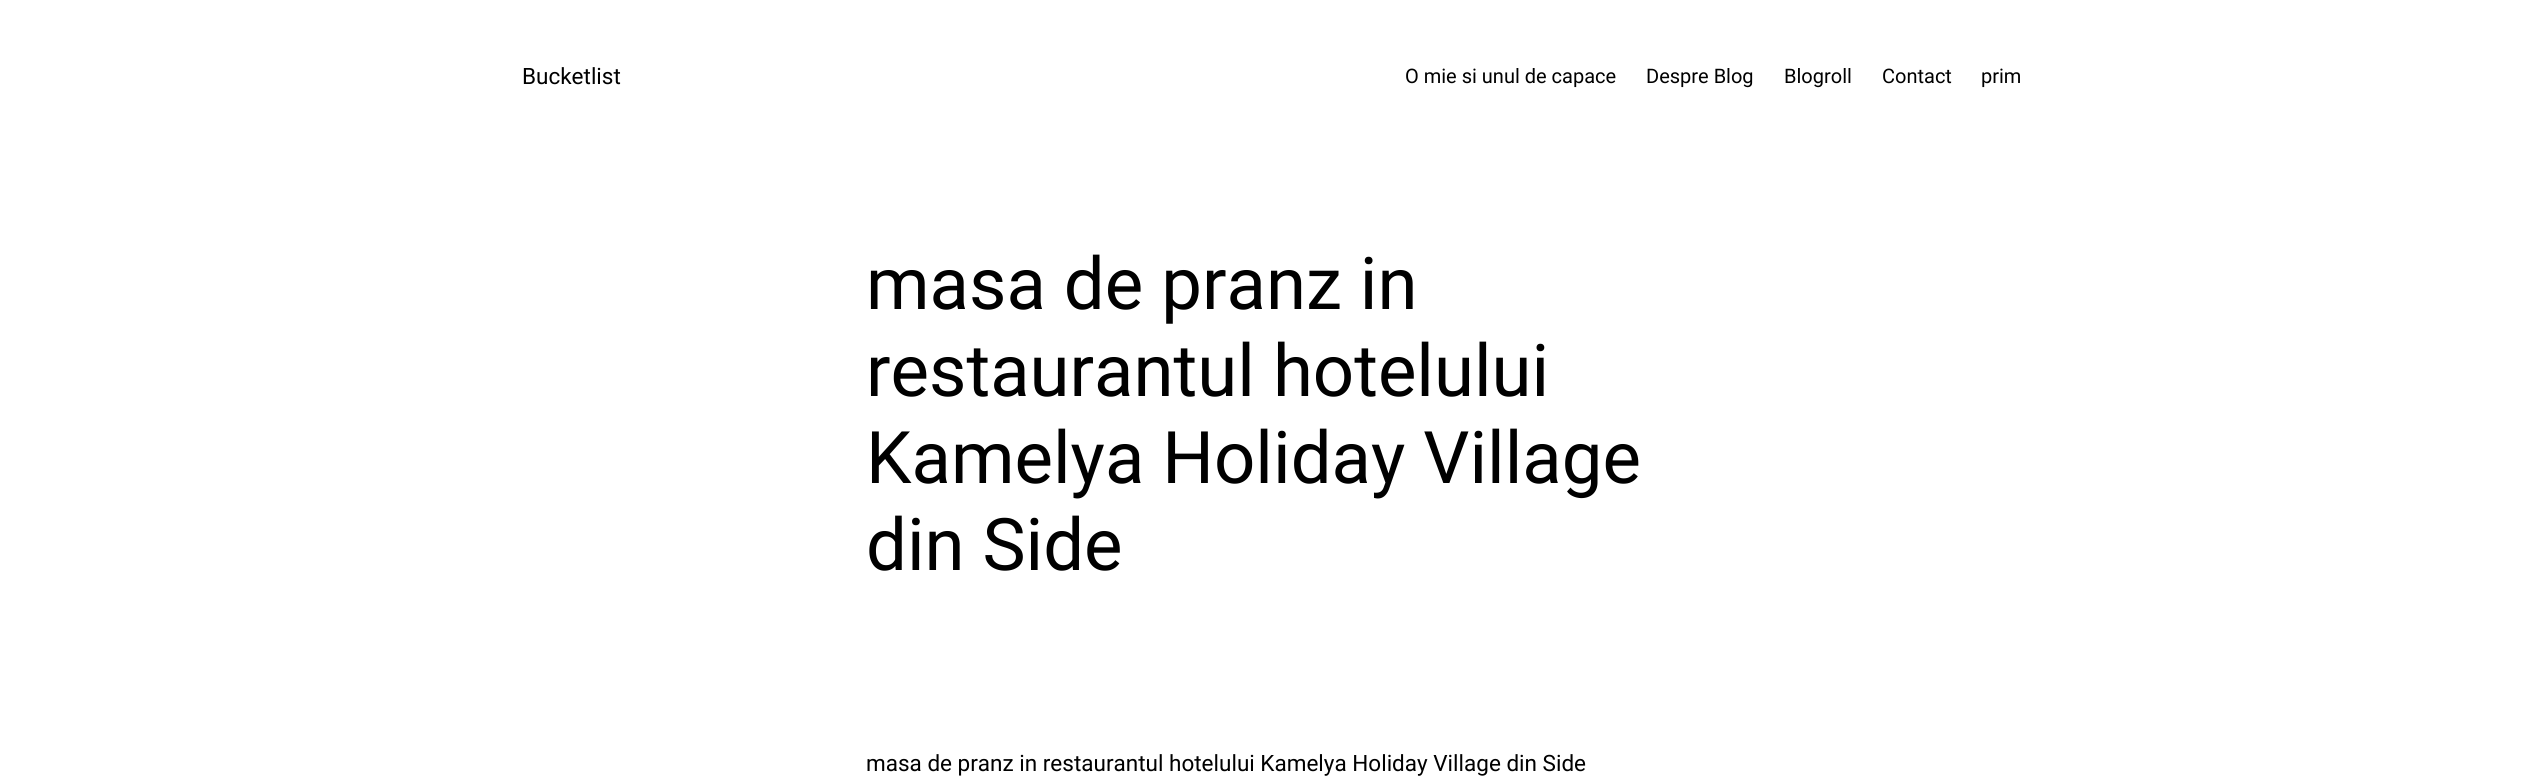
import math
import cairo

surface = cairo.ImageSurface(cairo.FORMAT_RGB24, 2543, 783)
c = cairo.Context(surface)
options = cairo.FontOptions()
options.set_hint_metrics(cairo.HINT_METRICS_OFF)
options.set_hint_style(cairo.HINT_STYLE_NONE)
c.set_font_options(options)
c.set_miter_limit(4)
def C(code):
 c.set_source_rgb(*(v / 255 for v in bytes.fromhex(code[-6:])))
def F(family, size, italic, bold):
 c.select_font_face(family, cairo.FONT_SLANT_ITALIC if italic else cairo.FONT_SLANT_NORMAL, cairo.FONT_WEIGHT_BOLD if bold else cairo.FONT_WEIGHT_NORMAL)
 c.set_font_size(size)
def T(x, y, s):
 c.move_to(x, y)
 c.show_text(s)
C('ffffff')
c.paint()
F('Roboto',22.5,0,0)
C('000000')
T(522,84,'Bucketlist')
F('Roboto',20,0,0)
T(1405,83,'O mie si unul de capace')
T(1646,83,'Despre Blog')
T(1784,83,'Blogroll')
T(1882,83,'Contact')
T(1981,83,'prim')
F('Roboto',72.5,0,0)
T(866,309,'masa de pranz in')
T(866,396,'restaurantul hotelului')
T(866,483,'Kamelya Holiday Village')
T(866,570,'din Side')
F('Roboto',22.5,0,0)
T(866,771,'masa de pranz in restaurantul hotelului Kamelya Holiday Village din Side')
surface.write_to_png('o.png')
